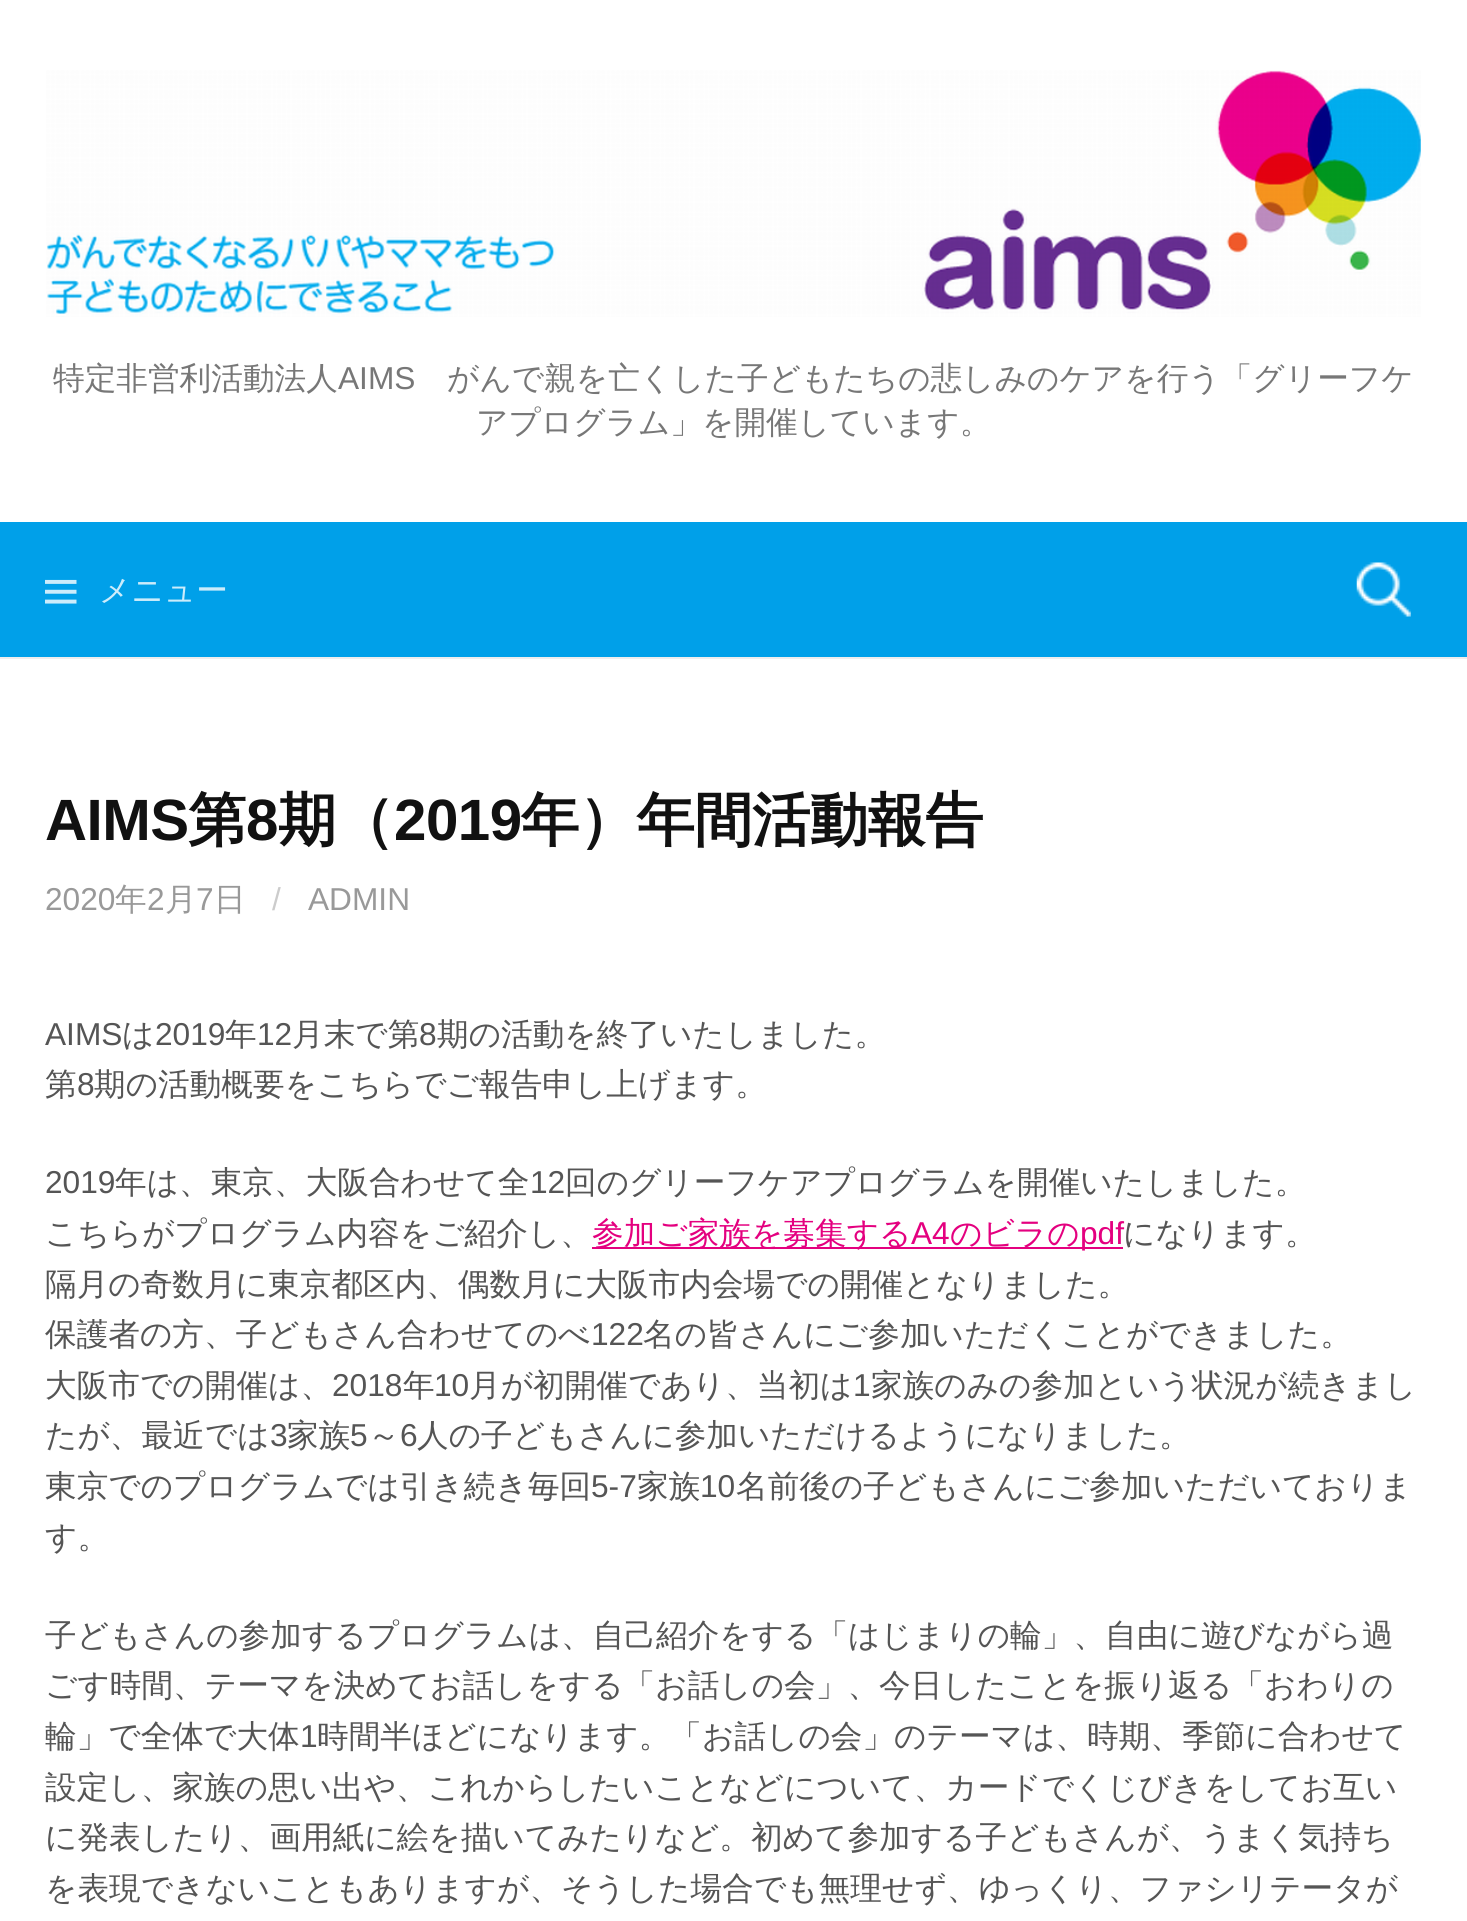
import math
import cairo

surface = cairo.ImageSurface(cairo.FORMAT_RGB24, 1467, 1921)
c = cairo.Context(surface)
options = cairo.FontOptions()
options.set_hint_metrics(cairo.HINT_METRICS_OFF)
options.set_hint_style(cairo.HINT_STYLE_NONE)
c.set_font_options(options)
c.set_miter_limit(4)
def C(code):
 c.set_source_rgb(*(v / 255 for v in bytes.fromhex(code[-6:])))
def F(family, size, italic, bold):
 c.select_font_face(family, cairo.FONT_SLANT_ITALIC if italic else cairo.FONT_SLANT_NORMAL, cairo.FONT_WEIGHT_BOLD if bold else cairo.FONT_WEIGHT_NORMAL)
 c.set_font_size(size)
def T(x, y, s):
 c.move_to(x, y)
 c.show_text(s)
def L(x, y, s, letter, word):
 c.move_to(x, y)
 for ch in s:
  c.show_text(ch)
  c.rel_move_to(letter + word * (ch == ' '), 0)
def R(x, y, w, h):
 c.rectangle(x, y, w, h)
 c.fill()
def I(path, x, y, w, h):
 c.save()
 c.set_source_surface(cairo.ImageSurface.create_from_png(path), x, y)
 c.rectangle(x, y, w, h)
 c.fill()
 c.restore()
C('ffffff')
c.paint()
C('eeeeee')
R(0,657,1467,2)
I('1.png',46,70,1375,247)
F('WenQuanYi Zen Hei Medium',31.65,0,0)
C('777777')
T(53,389,'特定非営利活動法人')
F('Liberation Sans',31.65,0,0)
T(338,389,'AIMS')
F('WenQuanYi Zen Hei Medium',31.65,0,0)
T(447,389,'がんで親を亡くした子どもたちの悲しみのケアを行う「グリーフケ')
T(476,433,'アプログラム」を開催しています。')
C('00a0e9')
R(0,522,1467,135)
I('2.png',45,579,32,25)
C('ccecfb')
T(99,601,'メニュー')
I('3.png',1356,562,55,55)
F('Liberation Sans',58.25,0,1)
C('111111')
L(45,840,'AIMS',-.5,0)
F('WenQuanYi Zen Hei',58.25,0,1)
L(188,840,'第',-.5,0)
F('Liberation Sans',58.25,0,1)
L(246,840,'8',-.5,0)
F('WenQuanYi Zen Hei',58.25,0,1)
L(278,840,'期（',-.5,0)
F('Liberation Sans',58.25,0,1)
L(394,840,'2019',-.5,0)
F('WenQuanYi Zen Hei',58.25,0,1)
L(521,840,'年）年間活動報告',-.5,0)
F('Liberation Sans',31.65,0,0)
C('999999')
T(45,910,'2020')
F('WenQuanYi Zen Hei Medium',31.65,0,0)
T(115,910,'年')
F('Liberation Sans',31.65,0,0)
T(147,910,'2')
F('WenQuanYi Zen Hei Medium',31.65,0,0)
T(165,910,'月')
F('Liberation Sans',31.65,0,0)
T(196,910,'7')
F('WenQuanYi Zen Hei Medium',31.65,0,0)
T(214,910,'日')
F('Liberation Sans',31.65,0,0)
C('cccccc')
T(272,910,'/')
C('999999')
T(308,910,'ADMIN')
C('555555')
T(45,1045,'AIMS')
F('WenQuanYi Zen Hei Medium',31.65,0,0)
T(122,1045,'は')
F('Liberation Sans',31.65,0,0)
T(155,1045,'2019')
F('WenQuanYi Zen Hei Medium',31.65,0,0)
T(225,1045,'年')
F('Liberation Sans',31.65,0,0)
T(257,1045,'12')
F('WenQuanYi Zen Hei Medium',31.65,0,0)
T(292,1045,'月末で第')
F('Liberation Sans',31.65,0,0)
T(419,1045,'8')
F('WenQuanYi Zen Hei Medium',31.65,0,0)
T(437,1045,'期の活動を終了いたしました。')
T(45,1095,'第')
F('Liberation Sans',31.65,0,0)
T(77,1095,'8')
F('WenQuanYi Zen Hei Medium',31.65,0,0)
T(94,1095,'期の活動概要をこちらでご報告申し上げます。')
F('Liberation Sans',31.65,0,0)
T(45,1193,'2019')
F('WenQuanYi Zen Hei Medium',31.65,0,0)
T(115,1193,'年は、東京、大阪合わせて全')
F('Liberation Sans',31.65,0,0)
T(530,1193,'12')
F('WenQuanYi Zen Hei Medium',31.65,0,0)
T(565,1193,'回のグリーフケアプログラムを開催いたしました。')
T(45,1244,'こちらがプログラム内容をご紹介し、')
C('e4007f')
R(592,1247,531,2)
T(592,1244,'参加ご家族を募集する')
F('Liberation Sans',31.65,0,0)
T(911,1244,'A4')
F('WenQuanYi Zen Hei Medium',31.65,0,0)
T(950,1244,'のビラの')
F('Liberation Sans',31.65,0,0)
T(1080,1244,'pdf')
F('WenQuanYi Zen Hei Medium',31.65,0,0)
C('555555')
T(1123,1244,'になります。')
T(45,1295,'隔月の奇数月に東京都区内、偶数月に大阪市内会場での開催となりました。')
T(45,1345,'保護者の方、子どもさん合わせてのべ')
F('Liberation Sans',31.65,0,0)
T(591,1345,'122')
F('WenQuanYi Zen Hei Medium',31.65,0,0)
T(643,1345,'名の皆さんにご参加いただくことができました。')
T(45,1396,'大阪市での開催は、')
F('Liberation Sans',31.65,0,0)
T(332,1396,'2018')
F('WenQuanYi Zen Hei Medium',31.65,0,0)
T(403,1396,'年')
F('Liberation Sans',31.65,0,0)
T(434,1396,'10')
F('WenQuanYi Zen Hei Medium',31.65,0,0)
T(469,1396,'月が初開催であり、当初は')
F('Liberation Sans',31.65,0,0)
T(853,1396,'1')
F('WenQuanYi Zen Hei Medium',31.65,0,0)
T(871,1396,'家族のみの参加という状況が続きまし')
T(45,1446,'たが、最近では')
F('Liberation Sans',31.65,0,0)
T(270,1446,'3')
F('WenQuanYi Zen Hei Medium',31.65,0,0)
T(287,1446,'家族')
F('Liberation Sans',31.65,0,0)
T(350,1446,'5')
F('WenQuanYi Zen Hei Medium',31.65,0,0)
T(368,1446,'～')
F('Liberation Sans',31.65,0,0)
T(400,1446,'6')
F('WenQuanYi Zen Hei Medium',31.65,0,0)
T(417,1446,'人の子どもさんに参加いただけるようになりました。')
T(45,1497,'東京でのプログラムでは引き続き毎回')
F('Liberation Sans',31.65,0,0)
T(591,1497,'5-7')
F('WenQuanYi Zen Hei Medium',31.65,0,0)
T(637,1497,'家族')
F('Liberation Sans',31.65,0,0)
T(700,1497,'10')
F('WenQuanYi Zen Hei Medium',31.65,0,0)
T(736,1497,'名前後の子どもさんにご参加いただいておりま')
T(45,1548,'す。')
T(45,1646,'子どもさんの参加するプログラムは、自己紹介をする「はじまりの輪」、自由に遊びながら過')
T(45,1696,'ごす時間、テーマを決めてお話しをする「お話しの会」、今日したことを振り返る「おわりの')
T(45,1747,'輪」で全体で大体')
F('Liberation Sans',31.65,0,0)
T(300,1747,'1')
F('WenQuanYi Zen Hei Medium',31.65,0,0)
T(317,1747,'時間半ほどになります。「お話しの会」のテーマは、時期、季節に合わせて')
T(45,1798,'設定し、家族の思い出や、これからしたいことなどについて、カードでくじびきをしてお互い')
T(45,1848,'に発表したり、画用紙に絵を描いてみたりなど。初めて参加する子どもさんが、うまく気持ち')
T(45,1899,'を表現できないこともありますが、そうした場合でも無理せず、ゆっくり、ファシリテータが')
surface.write_to_png('o.png')
